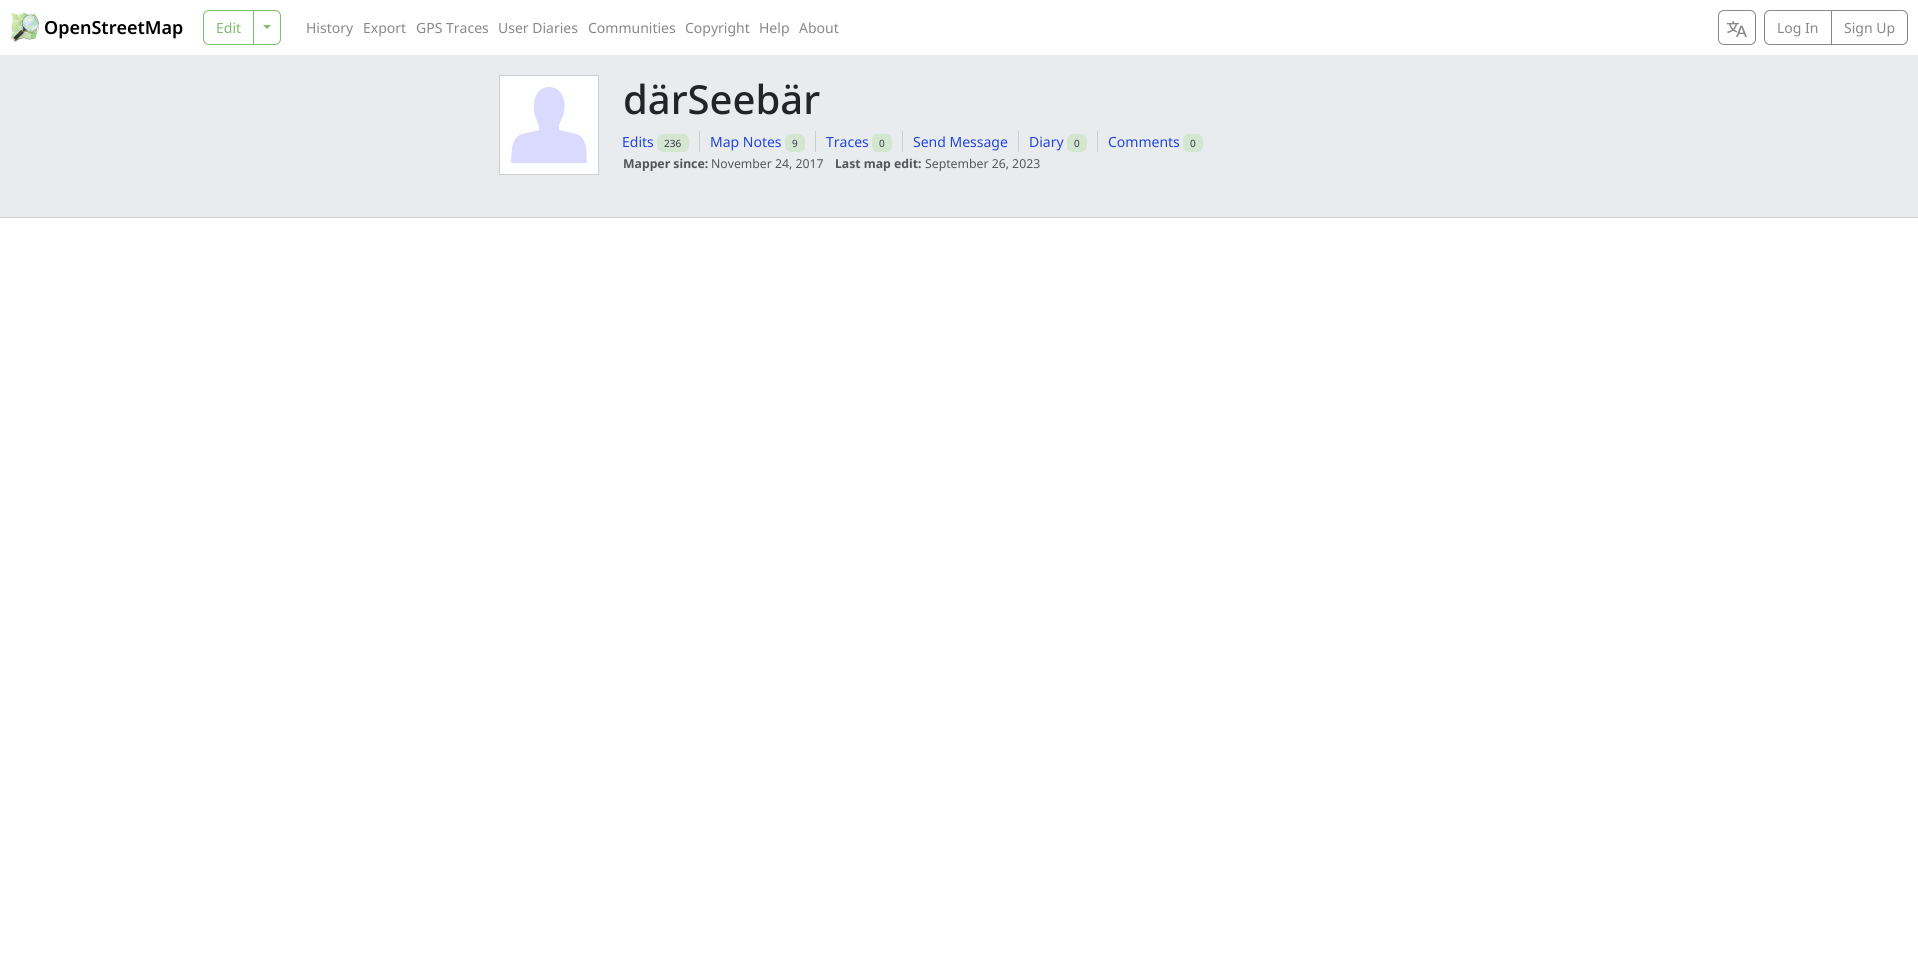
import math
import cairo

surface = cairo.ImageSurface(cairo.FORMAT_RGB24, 1918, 959)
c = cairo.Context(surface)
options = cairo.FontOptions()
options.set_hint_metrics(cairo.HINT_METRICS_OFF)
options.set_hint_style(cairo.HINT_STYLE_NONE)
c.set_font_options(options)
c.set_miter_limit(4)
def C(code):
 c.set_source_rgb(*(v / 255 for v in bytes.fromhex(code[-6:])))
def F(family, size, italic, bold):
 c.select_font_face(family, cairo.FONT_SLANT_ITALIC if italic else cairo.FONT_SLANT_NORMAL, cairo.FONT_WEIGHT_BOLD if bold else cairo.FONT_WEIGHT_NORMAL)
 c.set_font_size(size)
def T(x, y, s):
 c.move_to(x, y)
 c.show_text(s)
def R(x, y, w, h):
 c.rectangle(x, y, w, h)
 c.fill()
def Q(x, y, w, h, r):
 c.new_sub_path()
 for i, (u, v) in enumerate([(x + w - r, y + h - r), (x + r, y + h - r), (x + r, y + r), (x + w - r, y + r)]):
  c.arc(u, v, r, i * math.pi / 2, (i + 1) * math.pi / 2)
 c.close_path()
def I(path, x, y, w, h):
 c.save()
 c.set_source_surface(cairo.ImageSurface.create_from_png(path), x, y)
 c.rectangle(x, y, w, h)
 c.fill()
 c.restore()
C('ffffff')
c.paint()
I('1.png',11,13,28,29)
F('Noto Sans SemiBold',18,0,0)
C('000000')
T(44,34,'OpenStreetMap')
c.new_path()
c.move_to(209,10.5)
c.line_to(253.5,10.5)
c.line_to(253.5,44.5)
c.line_to(209,44.5)
c.curve_to(206,44.5,203.5,42,203.5,39)
c.line_to(203.5,16)
c.curve_to(203.5,13,206,10.5,209,10.5)
c.close_path()
C('7ebc6f')
c.set_line_width(1)
c.stroke()
F('Noto Sans',14,0,0)
T(216,33,'Edit')
c.new_path()
c.move_to(253.5,10.5)
c.line_to(275,10.5)
c.curve_to(278,10.5,280.5,13,280.5,16)
c.line_to(280.5,39)
c.curve_to(280.5,42,278,44.5,275,44.5)
c.line_to(253.5,44.5)
c.close_path()
c.stroke()
c.new_path()
c.move_to(263,25)
c.line_to(271,25)
c.line_to(267,29)
c.close_path()
c.fill()
C('888888')
T(306,33,'History')
T(363,33,'Export')
T(416,33,'GPS Traces')
T(498,33,'User Diaries')
T(588,33,'Communities')
T(685,33,'Copyright')
T(759,33,'Help')
T(799,33,'About')
Q(1718.5,10.5,37,34,5.5)
c.stroke()
I('2.png',1727,21,20,16)
c.new_path()
c.move_to(1770,10.5)
c.line_to(1831.5,10.5)
c.line_to(1831.5,44.5)
c.line_to(1770,44.5)
c.curve_to(1767,44.5,1764.5,42,1764.5,39)
c.line_to(1764.5,16)
c.curve_to(1764.5,13,1767,10.5,1770,10.5)
c.close_path()
c.stroke()
T(1777,33,'Log In')
c.new_path()
c.move_to(1831.5,10.5)
c.line_to(1902,10.5)
c.curve_to(1905,10.5,1907.5,13,1907.5,16)
c.line_to(1907.5,39)
c.curve_to(1907.5,42,1905,44.5,1902,44.5)
c.line_to(1831.5,44.5)
c.close_path()
c.stroke()
T(1844,33,'Sign Up')
C('e9ecef')
R(0,55,1918,162)
C('cfcfcf')
R(0,217,1918,1)
C('ffffff')
c.rectangle(499.5,75.5,99,99)
c.fill_preserve()
C('cfcfcf')
c.stroke()
C('dadaff')
c.new_path()
c.move_to(549,87)
c.curve_to(534,87,532,105,535,116)
c.line_to(539,126)
c.line_to(539,130)
c.line_to(522,134)
c.curve_to(510,138,512,153,511,163)
c.line_to(587,163)
c.curve_to(586,153,588,137,576,134)
c.line_to(559,130)
c.line_to(559,125)
c.line_to(563,116)
c.curve_to(567,105,564,87,549,87)
c.close_path()
c.fill()
F('Noto Sans Medium',40,0,0)
C('212529')
T(623,114,'därSeebär')
F('Noto Sans',14,0,0)
C('2244dd')
T(622,147,'Edits')
C('d3e6d0')
Q(657,134,32,18,6)
c.fill()
F('Noto Sans',10,0,0)
C('343a40')
T(664,147,'236')
C('cccccc')
R(699,131,1,21)
F('Noto Sans',14,0,0)
C('2244dd')
T(710,147,'Map Notes')
C('d3e6d0')
Q(785,134,20,18,6)
c.fill()
F('Noto Sans',10,0,0)
C('343a40')
T(792,147,'9')
C('cccccc')
R(815,131,1,21)
F('Noto Sans',14,0,0)
C('2244dd')
T(826,147,'Traces')
C('d3e6d0')
Q(872,134,20,18,6)
c.fill()
F('Noto Sans',10,0,0)
C('343a40')
T(879,147,'0')
C('cccccc')
R(902,131,1,21)
F('Noto Sans',14,0,0)
C('2244dd')
T(913,147,'Send Message')
C('cccccc')
R(1018,131,1,21)
C('2244dd')
T(1029,147,'Diary')
C('d3e6d0')
Q(1067,134,20,18,6)
c.fill()
F('Noto Sans',10,0,0)
C('343a40')
T(1074,147,'0')
C('cccccc')
R(1097,131,1,21)
F('Noto Sans',14,0,0)
C('2244dd')
T(1108,147,'Comments')
C('d3e6d0')
Q(1183,134,20,18,6)
c.fill()
F('Noto Sans',10,0,0)
C('343a40')
T(1190,147,'0')
F('Noto Sans',12.25,0,1)
C('53575b')
T(623,168,'Mapper since:')
F('Noto Sans',12.25,0,0)
T(711,168,'November 24, 2017')
F('Noto Sans',12.25,0,1)
T(835,168,'Last map edit:')
F('Noto Sans',12.25,0,0)
T(925,168,'September 26, 2023')
surface.write_to_png('o.png')
